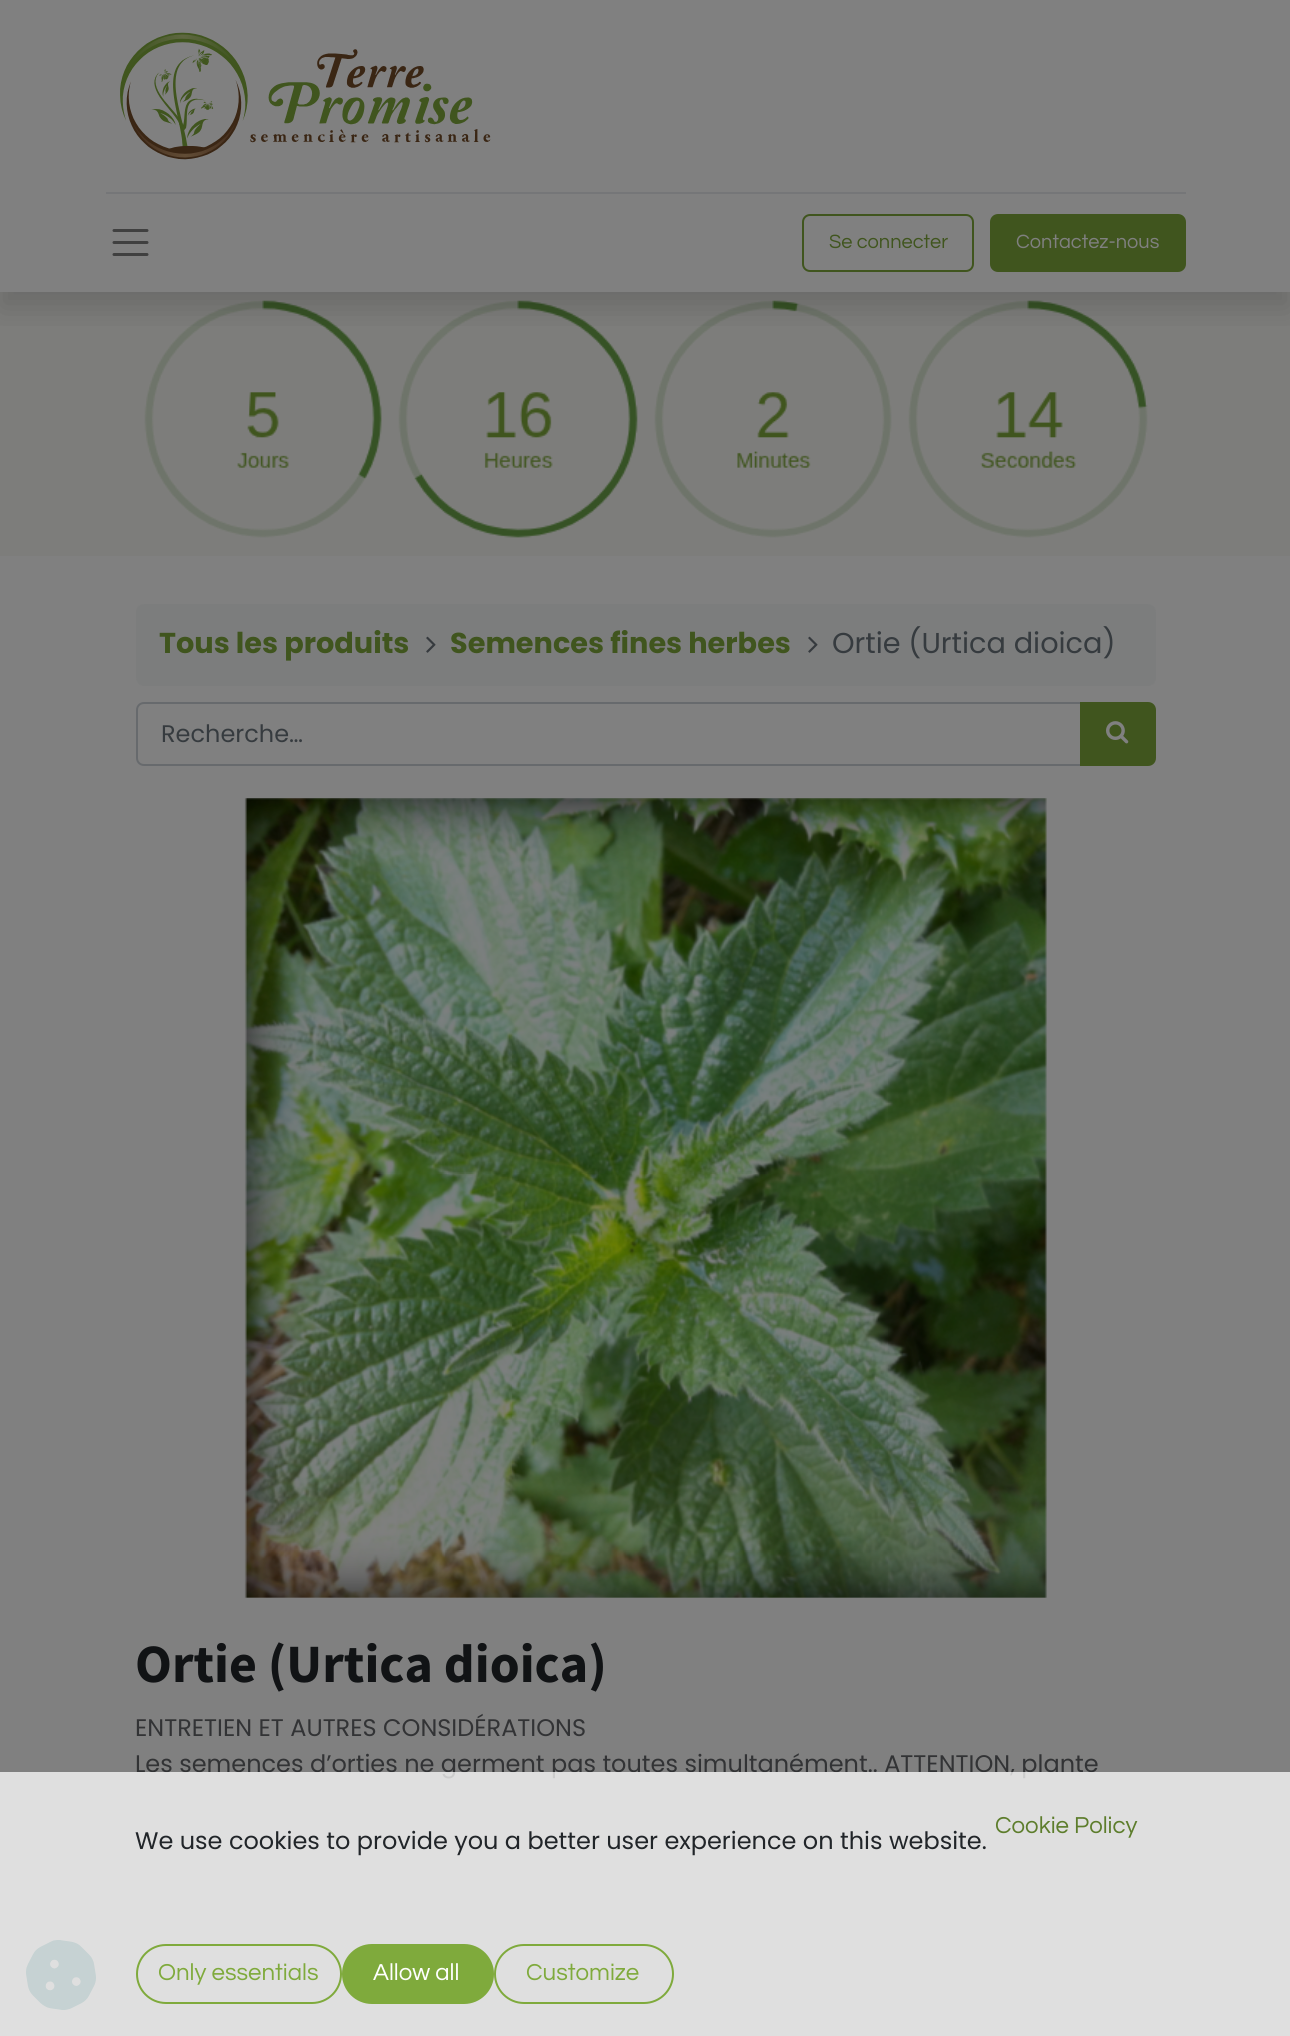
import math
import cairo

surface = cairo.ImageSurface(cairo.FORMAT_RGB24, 1290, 2036)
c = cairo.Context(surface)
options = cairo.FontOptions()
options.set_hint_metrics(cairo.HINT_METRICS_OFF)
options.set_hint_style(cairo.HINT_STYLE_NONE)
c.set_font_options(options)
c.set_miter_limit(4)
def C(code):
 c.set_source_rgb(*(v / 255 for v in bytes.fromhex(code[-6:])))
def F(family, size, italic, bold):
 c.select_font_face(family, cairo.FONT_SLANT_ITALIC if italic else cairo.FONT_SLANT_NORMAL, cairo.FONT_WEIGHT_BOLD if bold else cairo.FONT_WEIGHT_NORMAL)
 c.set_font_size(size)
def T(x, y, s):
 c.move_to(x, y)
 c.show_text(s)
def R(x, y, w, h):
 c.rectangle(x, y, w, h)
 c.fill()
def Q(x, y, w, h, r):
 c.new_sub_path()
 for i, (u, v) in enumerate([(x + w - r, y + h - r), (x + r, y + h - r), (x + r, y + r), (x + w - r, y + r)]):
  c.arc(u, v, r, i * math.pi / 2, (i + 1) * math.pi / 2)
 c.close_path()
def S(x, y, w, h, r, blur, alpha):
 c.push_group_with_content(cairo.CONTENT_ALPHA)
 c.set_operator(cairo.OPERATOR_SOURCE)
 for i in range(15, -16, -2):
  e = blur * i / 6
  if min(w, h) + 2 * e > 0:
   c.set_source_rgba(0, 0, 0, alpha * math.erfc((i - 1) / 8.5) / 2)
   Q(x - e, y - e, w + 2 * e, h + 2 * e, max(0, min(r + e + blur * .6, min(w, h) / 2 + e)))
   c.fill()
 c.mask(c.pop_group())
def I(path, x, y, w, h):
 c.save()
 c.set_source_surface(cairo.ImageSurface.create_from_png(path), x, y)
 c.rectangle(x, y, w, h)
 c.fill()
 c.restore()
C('808080')
c.paint()
C('7d7d7b')
R(0,292,1290,264)
I('2.png',144,300,238,238)
I('3.png',398,300,240,238)
I('4.png',654,300,238,238)
I('5.png',908,300,240,238)
c.save()
c.rectangle(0,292,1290,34)
c.clip()
C('000000')
S(0,16,1290,292,0,16,.15)
c.restore()
I('1.png',120,32,371,128)
C('757678')
R(106,192,1080,2)
c.new_path()
c.move_to(114,230.5)
c.line_to(147,230.5)
c.move_to(114,242.5)
c.line_to(147,242.5)
c.move_to(114,254.5)
c.line_to(147,254.5)
C('404040')
c.set_line_width(3)
c.set_line_cap(cairo.LINE_CAP_ROUND)
c.stroke()
Q(803,215,170,56,7)
C('40551e')
c.set_line_width(2)
c.set_line_cap(cairo.LINE_CAP_BUTT)
c.stroke()
F('Questrial',20,0,0)
T(829,248,'Se connecter')
Q(991,215,194,56,7)
c.fill_preserve()
c.stroke()
C('808080')
T(1016,248,'Contactez-nous')
C('7c7d7d')
Q(136,604,1020,82,8)
c.fill()
F('Poppins',28.75,0,1)
C('40551e')
T(159,653,'Tous les produits')
I('6.png',426,636,10,17)
T(450,653,'Semences fines herbes')
I('6.png',808,636,10,17)
F('Poppins',28.75,0,0)
C('363b3f')
T(832,653,'Ortie (Urtica dioica)')
c.new_path()
c.move_to(144,703)
c.line_to(1081,703)
c.line_to(1081,765)
c.line_to(144,765)
c.curve_to(140,765,137,762,137,758)
c.line_to(137,710)
c.curve_to(137,706,140,703,144,703)
c.close_path()
C('676a6d')
c.stroke()
F('Poppins',24,0,0)
C('363b3f')
T(161,742,'Recherche…')
C('40551e')
c.new_path()
c.move_to(1081,703)
c.line_to(1148,703)
c.curve_to(1152,703,1155,706,1155,710)
c.line_to(1155,758)
c.curve_to(1155,762,1152,765,1148,765)
c.line_to(1081,765)
c.close_path()
c.fill_preserve()
c.stroke()
I('7.png',1106,721,23,23)
I('8.png',244,798,803,800)
F('Source Sans Pro',54,0,1)
C('111315')
T(135,1682,'Ortie (Urtica dioica)')
F('Poppins',24,0,0)
C('323335')
T(135,1736,'ENTRETIEN ET AUTRES CONSIDÉRATIONS')
T(135,1772,'Les semences d’orties ne germent pas toutes simultanément.. ATTENTION, plante')
I('9.png',26,1940,70,70)
c.set_source_rgba(1,1,1,0.75)
R(0,1772,1290,264)
F('Questrial',24,0,0)
C('5d7d2c')
T(995,1833,'Cookie Policy')
F('Poppins',24,0,0)
C('212529')
T(135,1849,'We use cookies to provide you a better user experience on this website.')
Q(137,1945,204,58,29)
C('7faa3c')
c.stroke()
F('Questrial',24,0,0)
T(158,1980,'Only essentials')
Q(343,1945,150,58,29)
c.fill_preserve()
c.stroke()
C('ffffff')
T(373,1980,'Allow all')
Q(495,1945,178,58,29)
C('7faa3c')
c.stroke()
T(526,1980,'Customize')
surface.write_to_png('o.png')
